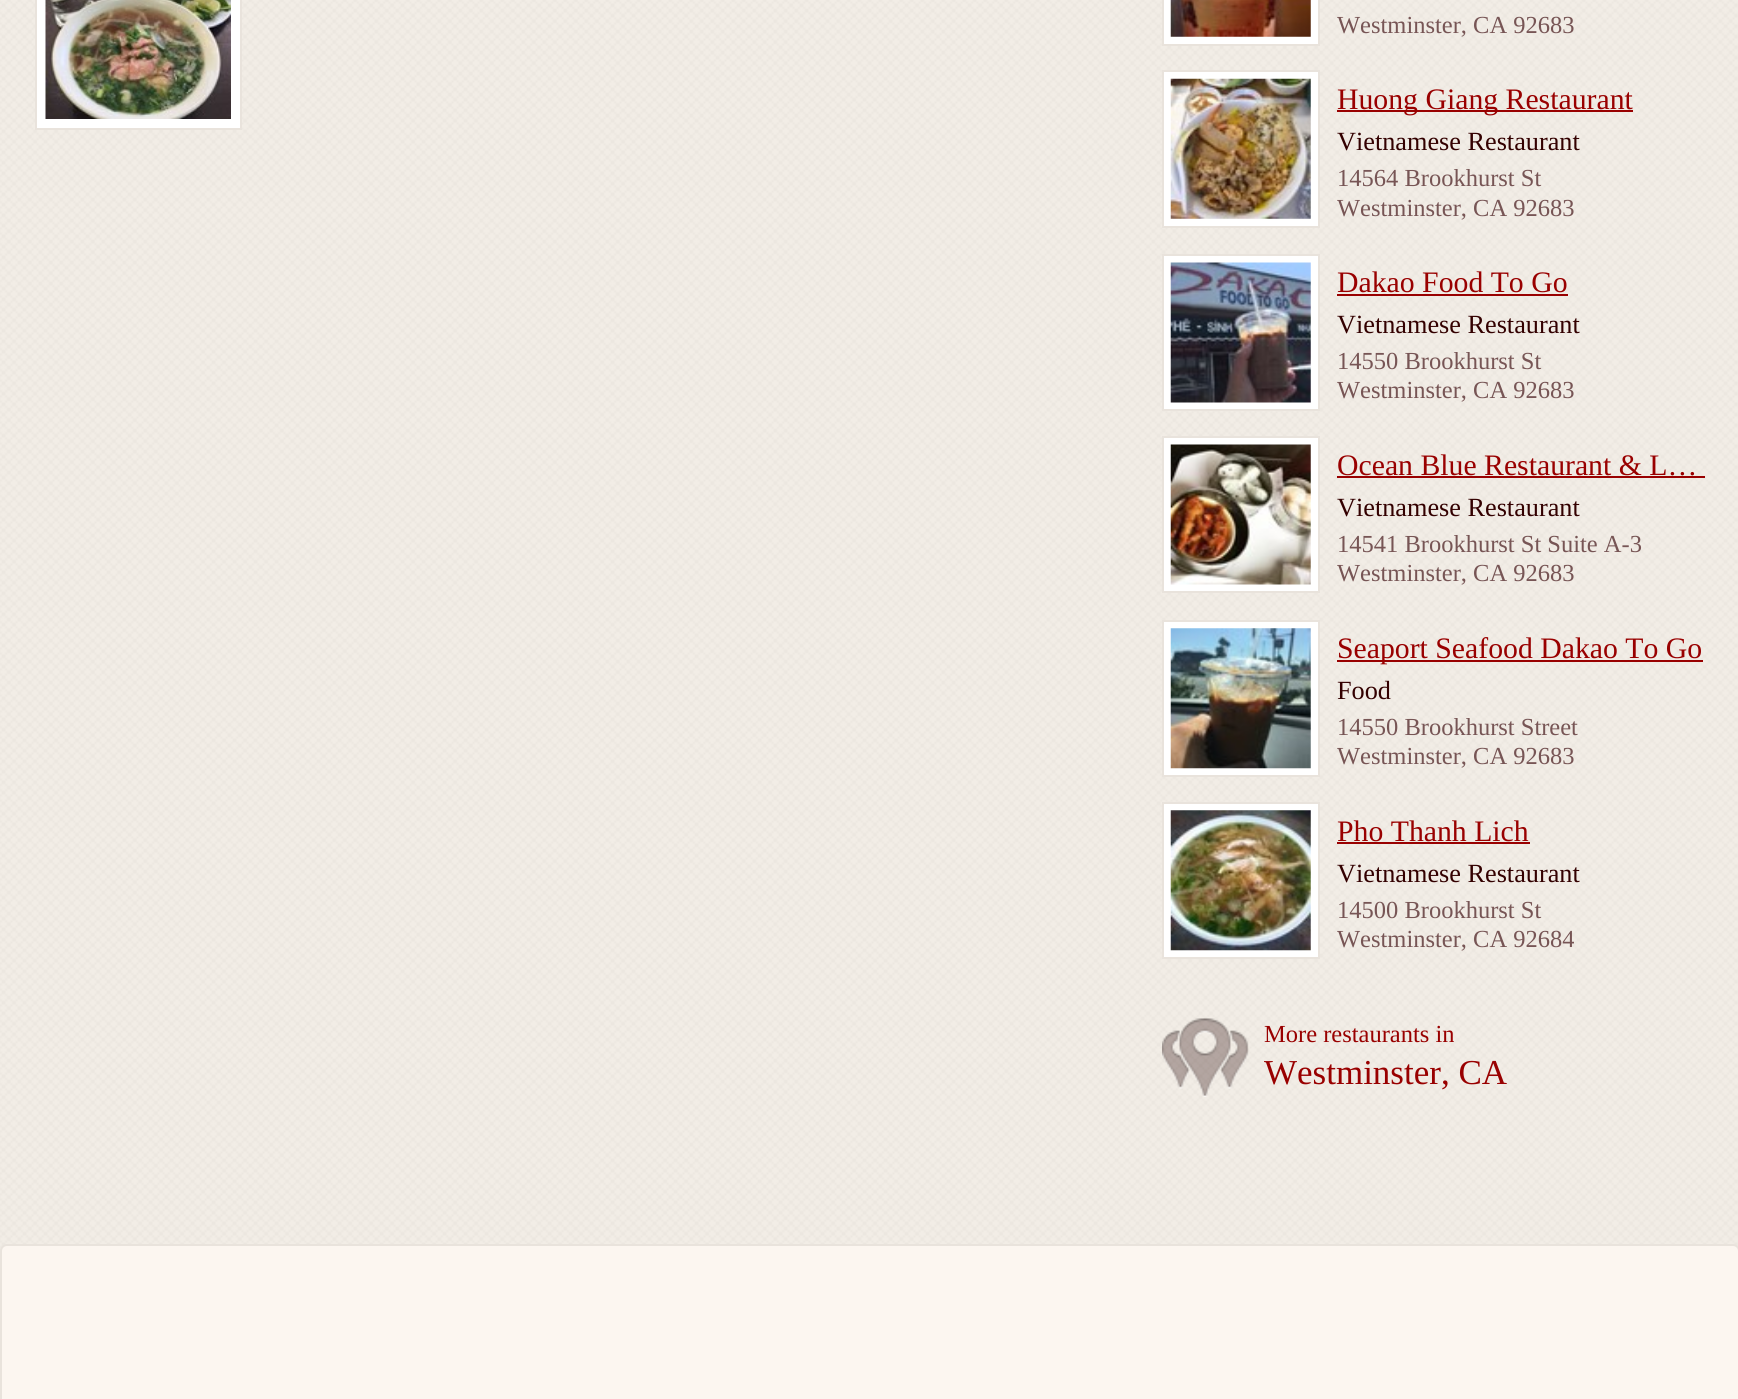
import math
import cairo

surface = cairo.ImageSurface(cairo.FORMAT_RGB24, 1738, 1399)
c = cairo.Context(surface)
options = cairo.FontOptions()
options.set_hint_metrics(cairo.HINT_METRICS_OFF)
options.set_hint_style(cairo.HINT_STYLE_NONE)
c.set_font_options(options)
c.set_miter_limit(4)
def C(code):
 c.set_source_rgb(*(v / 255 for v in bytes.fromhex(code[-6:])))
def F(family, size, italic, bold):
 c.select_font_face(family, cairo.FONT_SLANT_ITALIC if italic else cairo.FONT_SLANT_NORMAL, cairo.FONT_WEIGHT_BOLD if bold else cairo.FONT_WEIGHT_NORMAL)
 c.set_font_size(size)
def T(x, y, s):
 c.move_to(x, y)
 c.show_text(s)
def R(x, y, w, h):
 c.rectangle(x, y, w, h)
 c.fill()
def Q(x, y, w, h, r):
 c.new_sub_path()
 for i, (u, v) in enumerate([(x + w - r, y + h - r), (x + r, y + h - r), (x + r, y + r), (x + w - r, y + r)]):
  c.arc(u, v, r, i * math.pi / 2, (i + 1) * math.pi / 2)
 c.close_path()
def I(path, x, y, w, h):
 c.save()
 c.set_source_surface(cairo.ImageSurface.create_from_png(path), x, y)
 c.rectangle(x, y, w, h)
 c.fill()
 c.restore()
C('ffffff')
c.paint()
I('1.png',0,0,1738,1251)
C('ffffff')
c.rectangle(36,-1,205,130)
c.fill_preserve()
C('e9e3dc')
c.stroke()
I('2.png',45,0,186,119)
C('ffffff')
c.rectangle(1163,-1,156,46)
c.fill_preserve()
C('e9e3dc')
c.stroke()
I('3.png',1170,0,141,37)
F('Liberation Serif',24.5,0,0)
C('775555')
T(1337,33,'Westminster, CA 92683')
C('ffffff')
c.rectangle(1163,71,156,156)
c.fill_preserve()
C('e9e3dc')
c.stroke()
I('4.png',1170,78,141,141)
C('990000')
R(1337,110,296,2)
F('Liberation Serif',29.75,0,0)
T(1337,109,'Huong Giang Restaurant')
F('Liberation Serif',26.25,0,0)
C('330000')
T(1337,150,'Vietnamese Restaurant')
F('Liberation Serif',24.5,0,0)
C('775555')
T(1337,186,'14564 Brookhurst St')
T(1337,216,'Westminster, CA 92683')
C('ffffff')
c.rectangle(1163,255,156,155)
c.fill_preserve()
C('e9e3dc')
c.stroke()
I('5.png',1170,262,141,141)
F('Liberation Serif',29.75,0,0)
C('990000')
T(1337,292,'Dakao Food To Go')
R(1337,294,231,2)
F('Liberation Serif',26.25,0,0)
C('330000')
T(1337,333,'Vietnamese Restaurant')
F('Liberation Serif',24.5,0,0)
C('775555')
T(1337,369,'14550 Brookhurst St')
T(1337,398,'Westminster, CA 92683')
C('ffffff')
c.rectangle(1163,437,156,155)
c.fill_preserve()
C('e9e3dc')
c.stroke()
I('6.png',1170,444,141,141)
F('Liberation Serif',29.75,0,0)
C('990000')
T(1337,475,'Ocean Blue Restaurant & L…')
R(1337,476,368,2)
F('Liberation Serif',26.25,0,0)
C('330000')
T(1337,516,'Vietnamese Restaurant')
F('Liberation Serif',24.5,0,0)
C('775555')
T(1337,552,'14541 Brookhurst St Suite A-3')
T(1337,581,'Westminster, CA 92683')
C('ffffff')
c.rectangle(1163,621,156,155)
c.fill_preserve()
C('e9e3dc')
c.stroke()
I('7.png',1170,628,141,141)
C('990000')
R(1337,660,366,2)
F('Liberation Serif',29.75,0,0)
T(1337,658,'Seaport Seafood Dakao To Go')
F('Liberation Serif',26.25,0,0)
C('330000')
T(1337,699,'Food')
F('Liberation Serif',24.5,0,0)
C('775555')
T(1337,735,'14550 Brookhurst Street')
T(1337,764,'Westminster, CA 92683')
C('ffffff')
c.rectangle(1163,803,156,155)
c.fill_preserve()
C('e9e3dc')
c.stroke()
I('8.png',1170,810,141,141)
F('Liberation Serif',29.75,0,0)
C('990000')
T(1337,841,'Pho Thanh Lich')
R(1337,842,193,2)
F('Liberation Serif',26.25,0,0)
C('330000')
T(1337,882,'Vietnamese Restaurant')
F('Liberation Serif',24.5,0,0)
C('775555')
T(1337,918,'14500 Brookhurst St')
T(1337,947,'Westminster, CA 92684')
I('9.png',1162,1018,87,79)
C('990000')
T(1264,1042,'More restaurants in')
F('Liberation Serif',35,0,0)
T(1264,1084,'Westminster, CA')
C('fcf6f0')
Q(1,1245,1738,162,6)
c.fill_preserve()
C('e9e3dc')
c.stroke()
surface.write_to_png('o.png')
